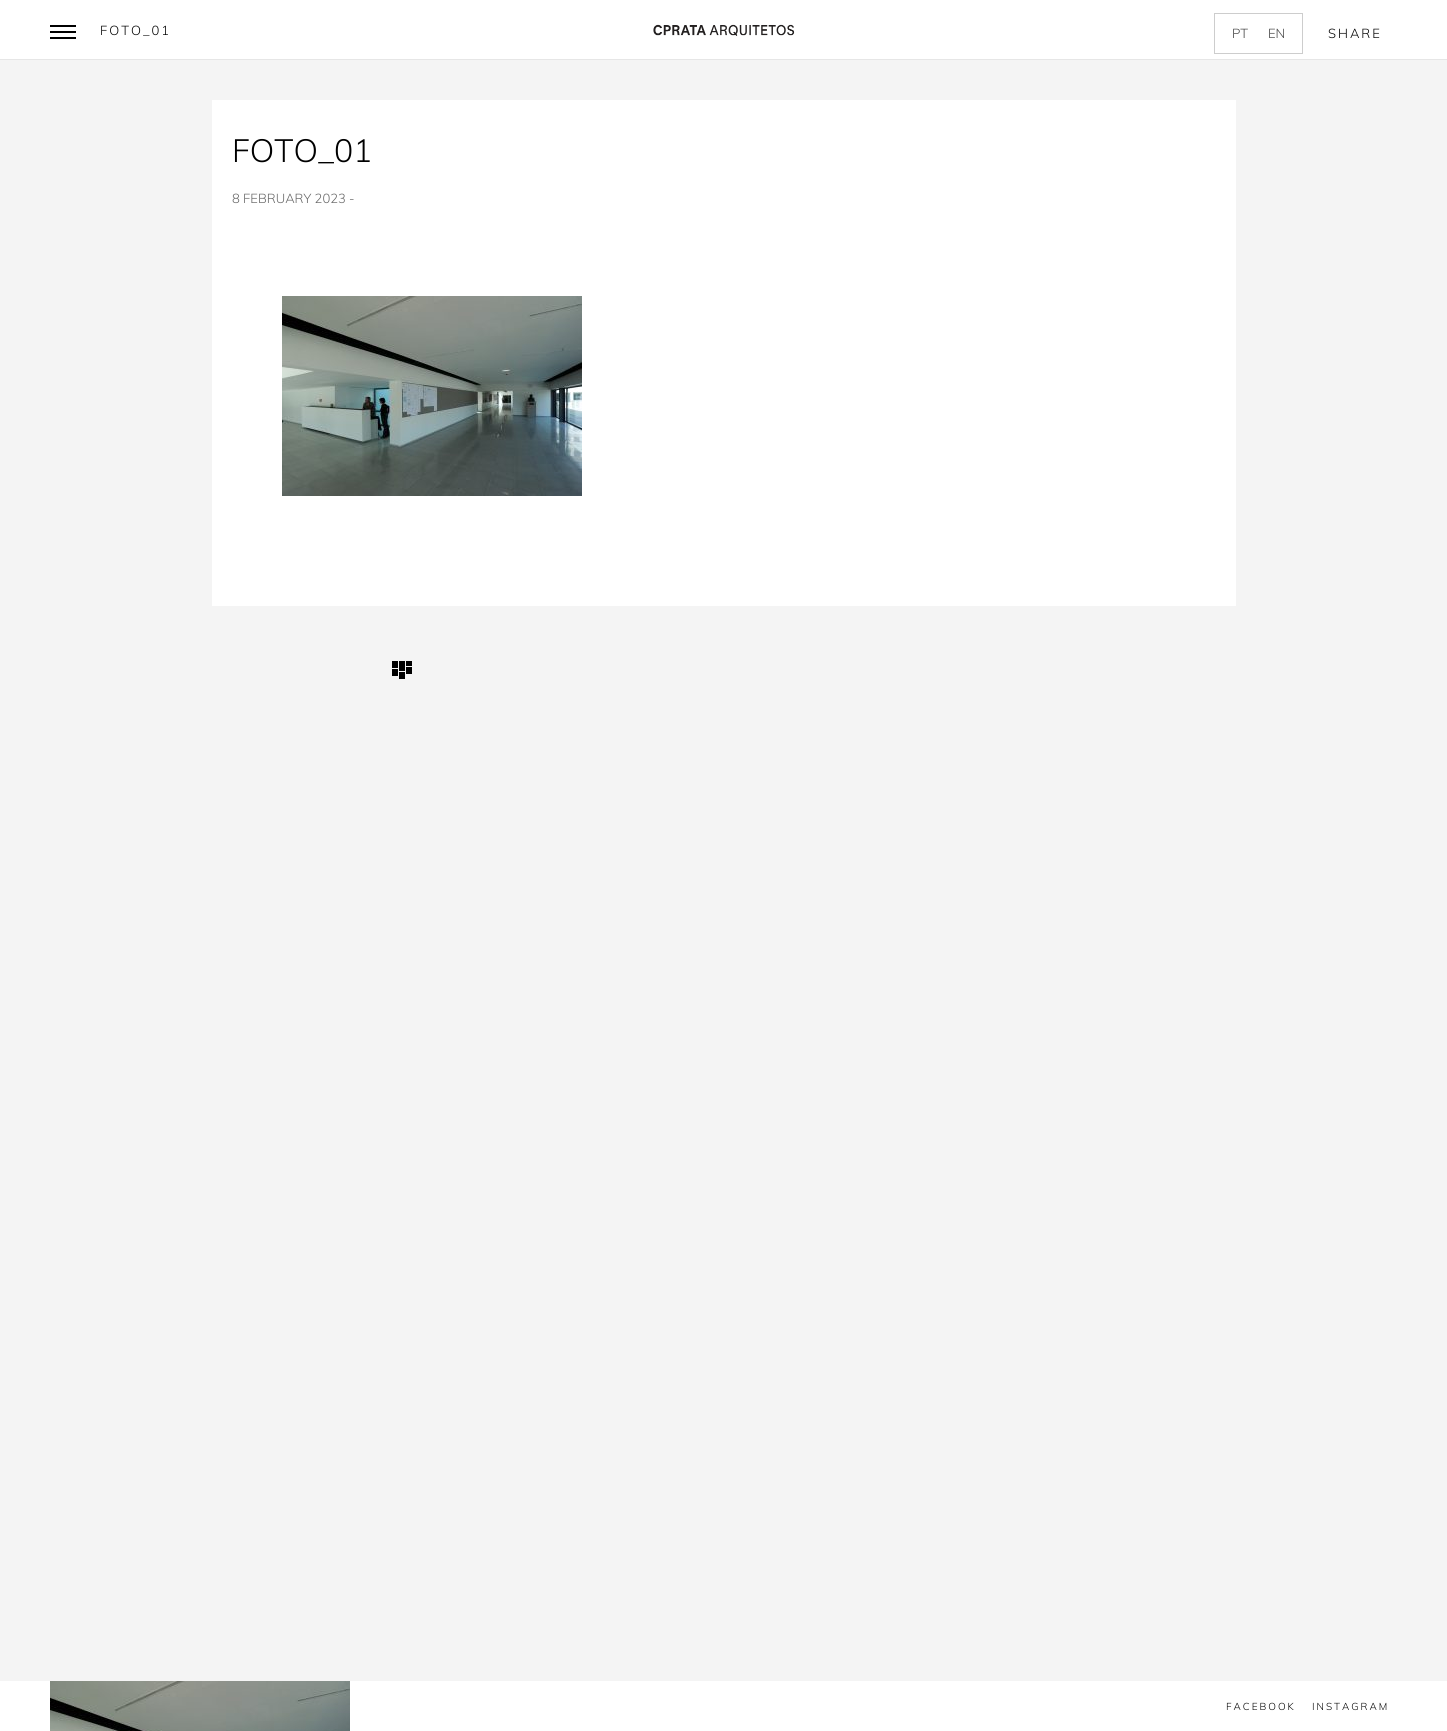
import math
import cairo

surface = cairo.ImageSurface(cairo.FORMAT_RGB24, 1447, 1731)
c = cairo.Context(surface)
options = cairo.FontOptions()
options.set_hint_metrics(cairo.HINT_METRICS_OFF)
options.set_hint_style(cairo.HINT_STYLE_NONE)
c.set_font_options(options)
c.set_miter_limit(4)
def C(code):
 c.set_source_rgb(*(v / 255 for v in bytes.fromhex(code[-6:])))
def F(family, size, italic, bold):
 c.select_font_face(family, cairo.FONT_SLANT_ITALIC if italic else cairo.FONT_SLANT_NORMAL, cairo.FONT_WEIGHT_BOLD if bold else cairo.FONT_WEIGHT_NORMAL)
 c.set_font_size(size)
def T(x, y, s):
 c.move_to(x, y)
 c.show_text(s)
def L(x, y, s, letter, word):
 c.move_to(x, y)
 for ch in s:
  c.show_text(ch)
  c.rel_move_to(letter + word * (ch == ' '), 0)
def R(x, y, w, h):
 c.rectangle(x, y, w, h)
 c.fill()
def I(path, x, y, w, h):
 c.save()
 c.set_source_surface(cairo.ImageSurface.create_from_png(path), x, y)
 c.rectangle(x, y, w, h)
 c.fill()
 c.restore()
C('f4f4f4')
c.paint()
C('ffffff')
R(0,0,1447,59)
C('e6e6e6')
R(0,59,1447,1)
C('000000')
R(50,25,26,2)
R(50,31,26,2)
R(50,37,26,2)
F('Muli Light',13,0,0)
L(100,35,'FOTO_01',2,0)
I('1.png',653,24,142,12)
c.rectangle(1214.5,13.5,88,40)
C('cdcdcd')
c.set_line_width(1)
c.stroke()
C('444444')
T(1232,38,'PT')
T(1268,38,'EN')
C('000000')
L(1328,38,'SHARE',2,0)
C('ffffff')
R(212,100,1024,506)
F('Muli Light',32,0,0)
C('000000')
T(232,162,'FOTO_01')
F('Muli Light',13,0,0)
C('666666')
T(232,203,'8 FEBRUARY 2023')
T(349,203,'-')
I('2.png',282,296,300,200)
C('000000')
R(392,661,6,7)
R(399,661,6,10)
R(406,661,6,5)
R(392,669,6,7)
R(399,672,6,7)
R(406,667,6,7)
C('ffffff')
R(0,1681,1447,50)
I('3.png',50,1681,300,50)
F('Muli Light',10,0,0)
C('000000')
L(1226,1710,'FACEBOOK',2,0)
L(1312,1710,'INSTAGRAM',2,0)
surface.write_to_png('o.png')
